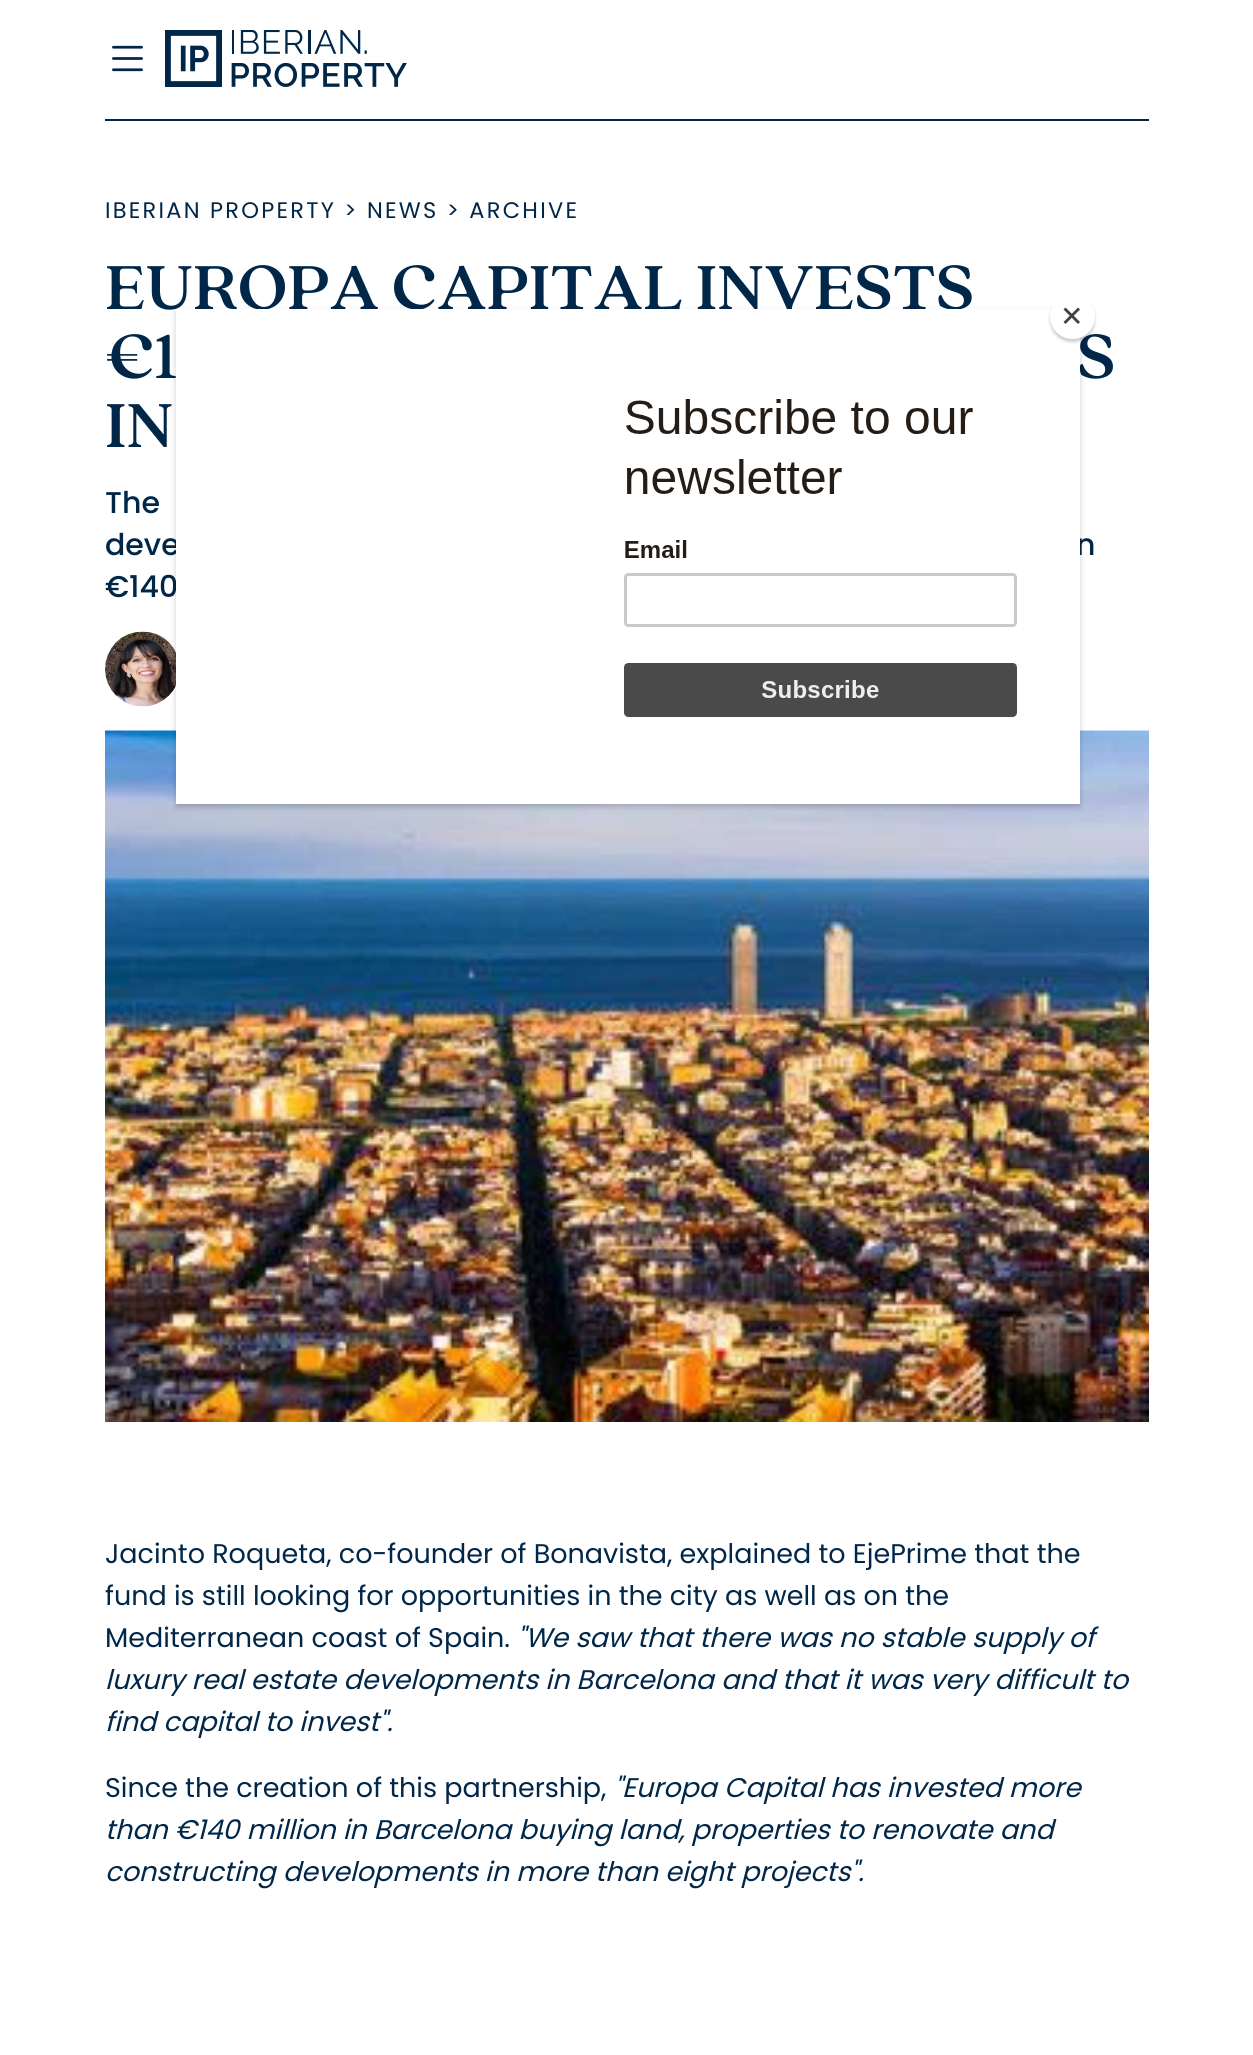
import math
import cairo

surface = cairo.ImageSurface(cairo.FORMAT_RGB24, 1253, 2055)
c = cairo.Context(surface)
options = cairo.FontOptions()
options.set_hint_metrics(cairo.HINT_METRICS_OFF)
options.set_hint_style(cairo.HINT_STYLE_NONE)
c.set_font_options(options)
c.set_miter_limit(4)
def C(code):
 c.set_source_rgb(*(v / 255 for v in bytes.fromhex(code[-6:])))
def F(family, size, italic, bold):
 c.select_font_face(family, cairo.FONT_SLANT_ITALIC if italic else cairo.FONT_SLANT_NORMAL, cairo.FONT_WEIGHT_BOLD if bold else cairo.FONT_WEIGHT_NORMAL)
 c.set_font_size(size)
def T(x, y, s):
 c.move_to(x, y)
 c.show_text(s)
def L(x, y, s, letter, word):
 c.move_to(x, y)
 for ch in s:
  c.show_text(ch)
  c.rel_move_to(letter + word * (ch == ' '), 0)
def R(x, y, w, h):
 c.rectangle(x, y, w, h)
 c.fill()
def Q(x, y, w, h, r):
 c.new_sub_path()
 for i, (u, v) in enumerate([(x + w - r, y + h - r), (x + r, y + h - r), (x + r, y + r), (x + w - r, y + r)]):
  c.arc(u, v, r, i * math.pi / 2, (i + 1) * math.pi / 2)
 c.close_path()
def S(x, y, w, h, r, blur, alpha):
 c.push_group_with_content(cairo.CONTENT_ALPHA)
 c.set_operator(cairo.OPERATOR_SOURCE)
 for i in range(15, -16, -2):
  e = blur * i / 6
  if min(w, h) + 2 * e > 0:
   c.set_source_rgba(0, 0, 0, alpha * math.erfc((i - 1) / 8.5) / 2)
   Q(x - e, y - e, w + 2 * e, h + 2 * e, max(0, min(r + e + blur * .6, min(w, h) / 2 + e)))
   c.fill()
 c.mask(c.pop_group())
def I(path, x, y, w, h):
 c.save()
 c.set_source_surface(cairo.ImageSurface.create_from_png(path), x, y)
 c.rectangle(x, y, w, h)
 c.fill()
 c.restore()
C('ffffff')
c.paint()
C('002648')
R(105,119,1044,2)
I('1.png',112,45,31,27)
I('2.png',165,30,242,57)
F('Poppins',22.5,0,0)
L(105,218,'IBERIAN PROPERTY > NEWS > ARCHIVE',2.25,0)
F('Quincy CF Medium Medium',69,0,0)
T(105,309,'EUROPA CAPITAL INVESTS')
T(105,378,'€1')
T(1077,378,'S')
T(105,447,'IN')
F('Poppins Medium',30,0,0)
T(105,513,'The')
T(105,555,'deve')
T(1076,555,'n')
T(105,597,'€140')
I('3.png',105,631,71,76)
I('4.png',105,730,1044,692)
F('Poppins',27,0,0)
T(105,1563,'Jacinto Roqueta, co-founder of Bonavista, explained to EjePrime that the')
T(105,1605,'fund is still looking for opportunities in the city as well as on the')
T(105,1647,'Mediterranean coast of Spain.')
F('Poppins',27,1,0)
T(517,1647,'"We saw that there was no stable supply of')
T(105,1689,'luxury real estate developments in Barcelona and that it was very difficult to')
T(105,1731,'find capital to invest".')
F('Poppins',27,0,0)
T(105,1797,'Since the creation of this partnership,')
F('Poppins',27,1,0)
T(614,1797,'"Europa Capital has invested more')
T(105,1839,'than €140 million in Barcelona buying land, properties to renovate and')
T(105,1881,'constructing developments in more than eight projects".')
C('000000')
S(176,312,904,495,0,3,.2)
I('5.png',176,309,904,495)
S(1050,297,45,45,22.5,1.5,.2)
C('ffffff')
c.arc(1072.5,316.5,22.5,0,2 * math.pi)
c.fill()
C('414141')
c.new_path()
c.move_to(1078,307.5)
c.line_to(1080,309.5)
c.line_to(1065.5,324)
c.line_to(1063.5,322)
c.close_path()
c.fill()
c.new_path()
c.move_to(1063.5,309.5)
c.line_to(1065.5,307.5)
c.line_to(1080,322)
c.line_to(1078,324)
c.close_path()
c.fill()
surface.write_to_png('o.png')
